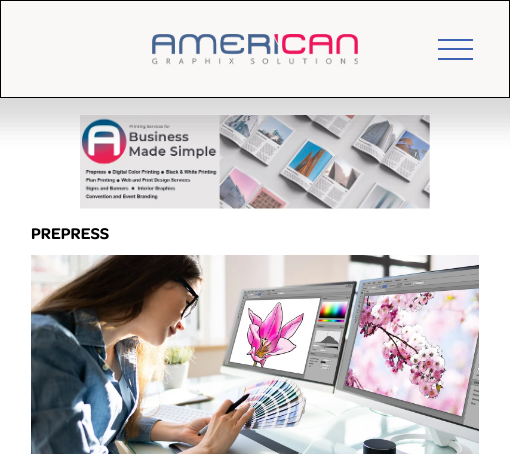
import math
import cairo

surface = cairo.ImageSurface(cairo.FORMAT_RGB24, 510, 465)
c = cairo.Context(surface)
options = cairo.FontOptions()
options.set_hint_metrics(cairo.HINT_METRICS_OFF)
options.set_hint_style(cairo.HINT_STYLE_NONE)
c.set_font_options(options)
c.set_miter_limit(4)
def C(code):
 c.set_source_rgb(*(v / 255 for v in bytes.fromhex(code[-6:])))
def F(family, size, italic, bold):
 c.select_font_face(family, cairo.FONT_SLANT_ITALIC if italic else cairo.FONT_SLANT_NORMAL, cairo.FONT_WEIGHT_BOLD if bold else cairo.FONT_WEIGHT_NORMAL)
 c.set_font_size(size)
def T(x, y, s):
 c.move_to(x, y)
 c.show_text(s)
def R(x, y, w, h):
 c.rectangle(x, y, w, h)
 c.fill()
def Q(x, y, w, h, r):
 c.new_sub_path()
 for i, (u, v) in enumerate([(x + w - r, y + h - r), (x + r, y + h - r), (x + r, y + r), (x + w - r, y + r)]):
  c.arc(u, v, r, i * math.pi / 2, (i + 1) * math.pi / 2)
 c.close_path()
def S(x, y, w, h, r, blur, alpha):
 c.push_group_with_content(cairo.CONTENT_ALPHA)
 c.set_operator(cairo.OPERATOR_SOURCE)
 for i in range(15, -16, -2):
  e = blur * i / 6
  if min(w, h) + 2 * e > 0:
   c.set_source_rgba(0, 0, 0, alpha * math.erfc((i - 1) / 8.5) / 2)
   Q(x - e, y - e, w + 2 * e, h + 2 * e, max(0, min(r + e + blur * .6, min(w, h) / 2 + e)))
   c.fill()
 c.mask(c.pop_group())
def I(path, x, y, w, h):
 c.save()
 c.set_source_surface(cairo.ImageSurface.create_from_png(path), x, y)
 c.rectangle(x, y, w, h)
 c.fill()
 c.restore()
C('ffffff')
c.paint()
I('2.png',80,115,350,94)
C('000000')
S(-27,-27,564,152,0,13,.15)
C('faf7f7')
c.rectangle(.5,.5,509,97)
c.fill_preserve()
C('000000')
c.set_line_width(1)
c.stroke()
I('1.png',152,34,206,31)
C('3e63b4')
R(438,39,35,2)
R(438,48,35,2)
R(438,58,35,2)
F('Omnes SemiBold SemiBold',16.5,0,0)
C('000000')
T(31,239,'PREPRESS')
I('3.png',31,255,448,199)
surface.write_to_png('o.png')
